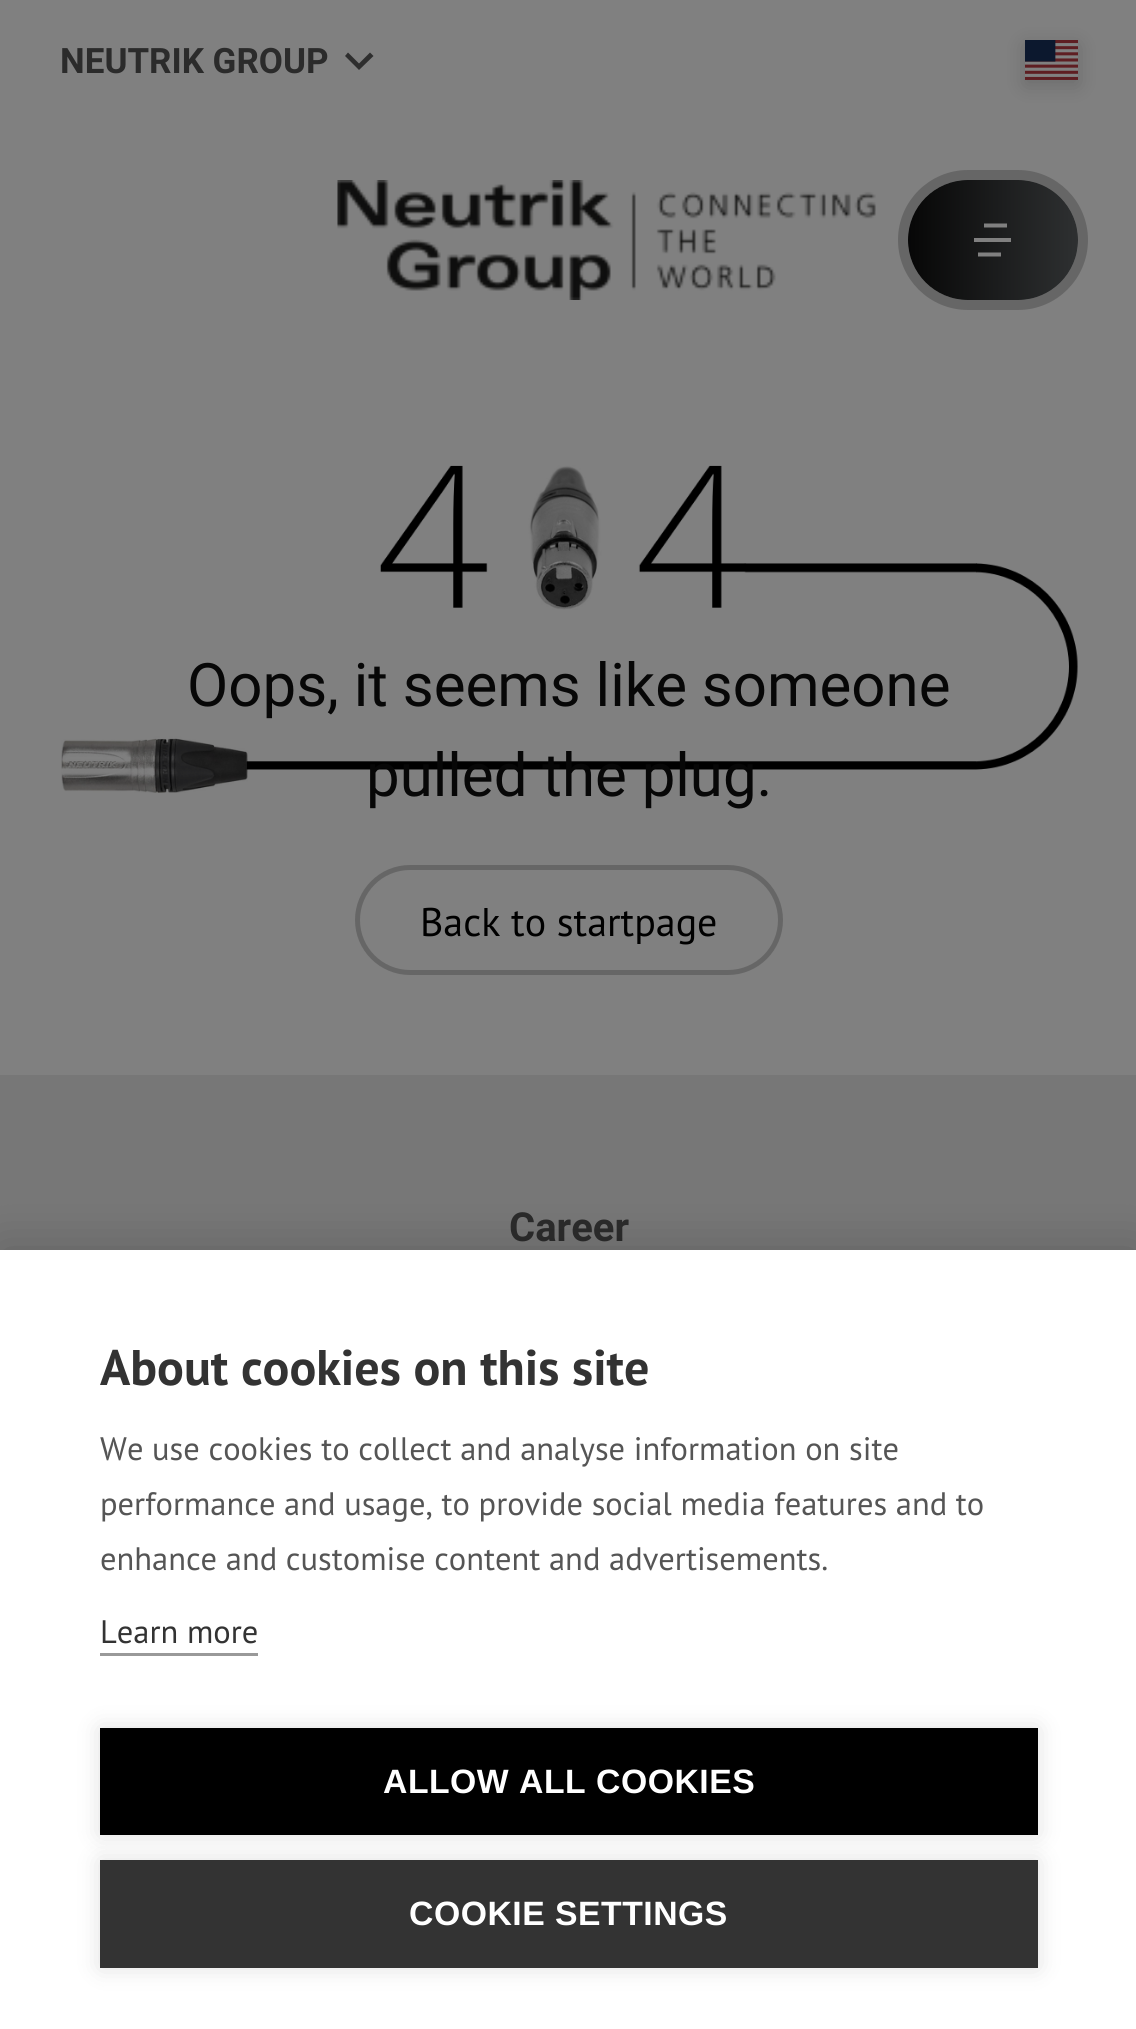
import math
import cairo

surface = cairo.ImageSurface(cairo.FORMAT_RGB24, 1136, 2029)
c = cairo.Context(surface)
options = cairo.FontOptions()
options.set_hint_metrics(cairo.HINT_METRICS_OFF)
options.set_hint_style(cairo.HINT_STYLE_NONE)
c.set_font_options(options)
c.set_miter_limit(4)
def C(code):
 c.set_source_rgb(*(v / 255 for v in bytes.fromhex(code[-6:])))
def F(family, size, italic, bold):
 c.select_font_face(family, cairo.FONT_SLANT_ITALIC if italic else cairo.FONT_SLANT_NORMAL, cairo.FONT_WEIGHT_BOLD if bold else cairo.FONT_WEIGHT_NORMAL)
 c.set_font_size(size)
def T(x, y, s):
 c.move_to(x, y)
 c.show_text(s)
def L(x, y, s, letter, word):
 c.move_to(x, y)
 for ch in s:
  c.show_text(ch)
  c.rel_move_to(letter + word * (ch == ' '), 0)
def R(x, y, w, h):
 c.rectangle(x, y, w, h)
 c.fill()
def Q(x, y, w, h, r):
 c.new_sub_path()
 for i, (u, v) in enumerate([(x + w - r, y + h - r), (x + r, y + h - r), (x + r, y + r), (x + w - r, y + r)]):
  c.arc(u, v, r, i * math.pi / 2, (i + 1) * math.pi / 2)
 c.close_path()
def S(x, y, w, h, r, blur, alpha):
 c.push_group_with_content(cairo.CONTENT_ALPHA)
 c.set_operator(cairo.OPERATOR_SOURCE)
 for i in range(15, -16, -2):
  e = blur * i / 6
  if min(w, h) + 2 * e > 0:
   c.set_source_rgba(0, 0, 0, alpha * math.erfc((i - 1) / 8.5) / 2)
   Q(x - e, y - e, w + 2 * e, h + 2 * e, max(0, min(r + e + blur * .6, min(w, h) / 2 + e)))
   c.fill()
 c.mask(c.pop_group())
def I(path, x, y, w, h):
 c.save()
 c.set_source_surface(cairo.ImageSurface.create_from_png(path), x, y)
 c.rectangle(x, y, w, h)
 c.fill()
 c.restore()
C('808080')
c.paint()
F('Roboto',35,0,1)
C('2b2b2b')
T(60,73,'NEUTRIK GROUP')
C('2e2e2e')
c.new_path()
c.move_to(359,63.5)
c.line_to(370,52.5)
c.line_to(373.5,56)
c.line_to(359,70)
c.line_to(345,56)
c.line_to(348,52.5)
c.close_path()
c.fill()
C('000000')
S(1025,45,53,40,0,10,.16)
I('1.png',1025,40,53,40)
I('2.png',337,180,539,120)
Q(903,175,180,130,65)
C('666666')
c.set_line_width(10)
c.stroke()
gradient = cairo.LinearGradient(1078,240,908,240)
gradient.add_color_stop_rgba(0,0.18,0.188,0.192,1)
gradient.add_color_stop_rgba(1,0.027,0.027,0.027,1)
c.set_source(gradient)
Q(908,180,170,120,60)
c.fill()
C('808080')
c.new_path()
c.move_to(1001,252.5)
c.line_to(1001,256.5)
c.line_to(978,256.5)
c.line_to(978,252.5)
c.close_path()
c.move_to(1011,238)
c.line_to(1011,242)
c.line_to(974,242)
c.line_to(974,238)
c.close_path()
c.move_to(1007,223.5)
c.line_to(1007,227.5)
c.line_to(984,227.5)
c.line_to(984,223.5)
c.close_path()
c.fill()
I('3.png',61,465,1017,328)
F('Roboto',60,0,0)
C('070707')
T(187,706,'Oops, it seems like someone')
T(366,796,'pulled the plug.')
Q(357.5,867.5,423,105,52.5)
C('666666')
c.set_line_width(5)
c.stroke()
F('PT Sans',40,0,0)
C('000000')
T(420,936,'Back to startpage')
C('777777')
R(0,1075,1136,175)
F('Roboto',40,0,1)
C('2b2b2b')
T(509,1241,'Career')
C('000000')
S(0,1250,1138,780,0,25,.2)
C('ffffff')
R(0,1250,1136,779)
F('PT Sans',50,0,1)
C('333333')
T(100,1385,'About cookies on this site')
F('PT Sans',32.5,0,0)
C('555555')
T(100,1460,'We use cookies to collect and analyse information on site')
T(100,1515,'performance and usage, to provide social media features and to')
T(100,1570,'enhance and customise content and advertisements.')
C('333333')
T(100,1643,'Learn more')
C('999999')
R(100,1653,158,3)
C('000000')
S(100,1728,938,107,0,12.5,.12)
C('000000')
R(100,1728,938,107)
F('Liberation Sans',33.75,0,1)
C('ffffff')
L(383,1793,'ALLOW ALL COOKIES',.5,0)
C('000000')
S(100,1860,938,108,0,12.5,.12)
C('333333')
R(100,1860,938,108)
C('ffffff')
L(409,1925,'COOKIE SETTINGS',.5,0)
surface.write_to_png('o.png')
